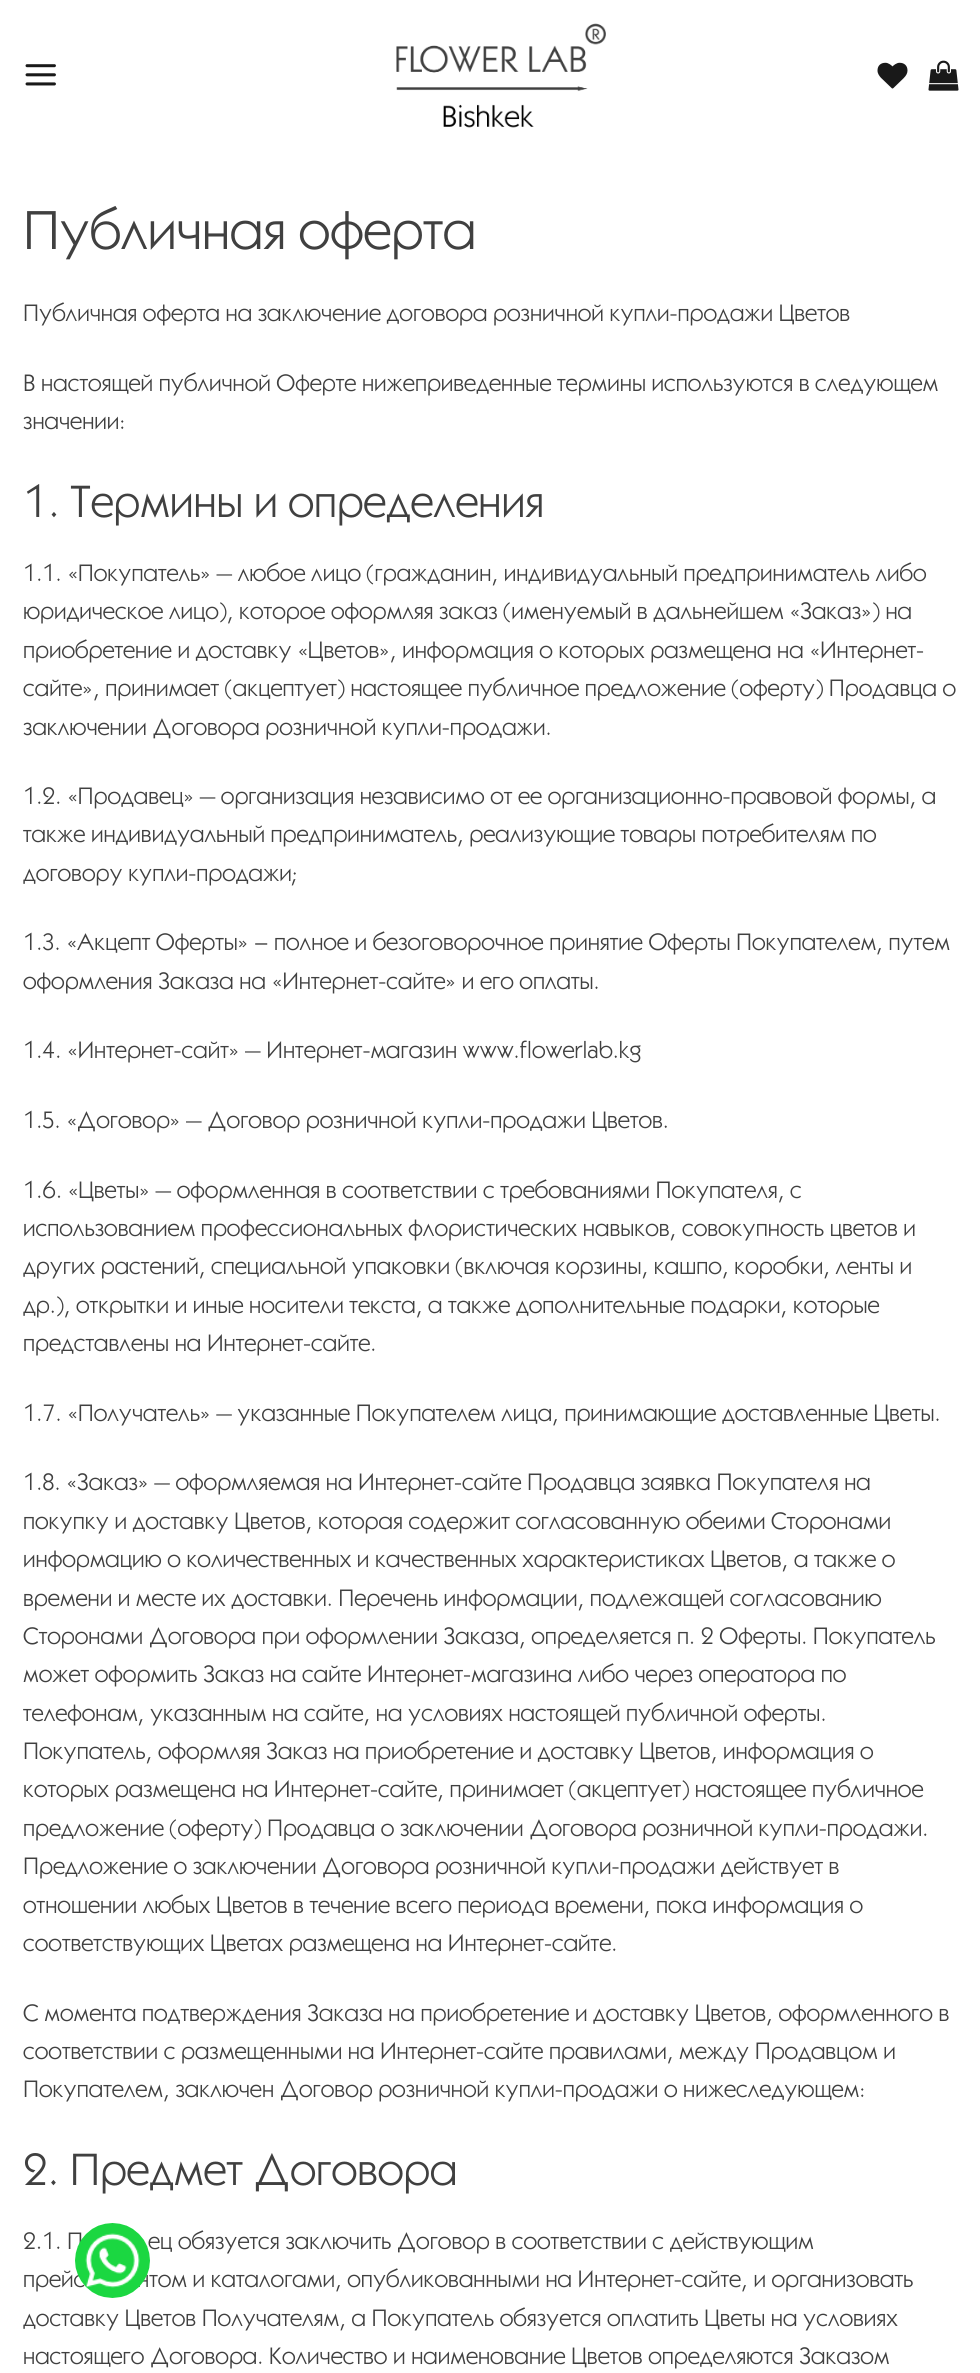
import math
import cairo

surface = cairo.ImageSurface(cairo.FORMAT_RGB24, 980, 2373)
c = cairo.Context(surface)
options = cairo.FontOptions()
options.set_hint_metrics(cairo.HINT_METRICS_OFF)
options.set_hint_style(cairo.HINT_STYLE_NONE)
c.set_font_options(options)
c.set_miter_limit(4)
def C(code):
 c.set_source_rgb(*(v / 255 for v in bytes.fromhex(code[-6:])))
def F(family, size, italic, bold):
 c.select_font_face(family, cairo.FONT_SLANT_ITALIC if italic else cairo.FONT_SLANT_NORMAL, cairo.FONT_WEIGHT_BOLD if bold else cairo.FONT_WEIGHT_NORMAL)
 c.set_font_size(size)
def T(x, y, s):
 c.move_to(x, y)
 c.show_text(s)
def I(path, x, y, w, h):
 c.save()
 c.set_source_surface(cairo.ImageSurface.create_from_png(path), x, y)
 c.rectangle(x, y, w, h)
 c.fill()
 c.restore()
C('ffffff')
c.paint()
I('1.png',25,64,31,22)
I('2.png',396,23,210,105)
I('3.png',877,62,31,27)
I('4.png',928,60,31,31)
F('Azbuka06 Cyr',55.25,0,0)
C('404040')
T(23,249,'Публичная оферта')
F('Azbuka06 Cyr',24,0,0)
T(23,321,'Публичная оферта на заключение договора розничной купли-продажи Цветов')
T(23,391,'В настоящей публичной Оферте нижеприведенные термины используются в следующем')
T(23,429,'значении:')
F('Azbuka06 Cyr',45.6,0,0)
T(23,517,'1. Термины и определения')
F('Azbuka06 Cyr',24,0,0)
T(23,581,'1.1. «Покупатель» — любое лицо (гражданин, индивидуальный предприниматель либо')
T(23,619,'юридическое лицо), которое оформляя заказ (именуемый в дальнейшем «Заказ») на')
T(23,658,'приобретение и доставку «Цветов», информация о которых размещена на «Интернет-')
T(23,696,'сайте», принимает (акцептует) настоящее публичное предложение (оферту) Продавца о')
T(23,735,'заключении Договора розничной купли-продажи.')
T(23,804,'1.2. «Продавец» — организация независимо от ее организационно-правовой формы, а')
T(23,842,'также индивидуальный предприниматель, реализующие товары потребителям по')
T(23,881,'договору купли-продажи;')
T(23,950,'1.3. «Акцепт Оферты» – полное и безоговорочное принятие Оферты Покупателем, путем')
T(23,989,'оформления Заказа на «Интернет-сайте» и его оплаты.')
T(23,1058,'1.4. «Интернет-сайт» — Интернет-магазин www.flowerlab.kg')
T(23,1128,'1.5. «Договор» — Договор розничной купли-продажи Цветов.')
T(23,1198,'1.6. «Цветы» — оформленная в соответствии с требованиями Покупателя, с')
T(23,1236,'использованием профессиональных флористических навыков, совокупность цветов и')
T(23,1274,'других растений, специальной упаковки (включая корзины, кашпо, коробки, ленты и')
T(23,1313,'др.), открытки и иные носители текста, а также дополнительные подарки, которые')
T(23,1351,'представлены на Интернет-сайте.')
T(23,1421,'1.7. «Получатель» — указанные Покупателем лица, принимающие доставленные Цветы.')
T(23,1490,'1.8. «Заказ» — оформляемая на Интернет-сайте Продавца заявка Покупателя на')
T(23,1529,'покупку и доставку Цветов, которая содержит согласованную обеими Сторонами')
T(23,1567,'информацию о количественных и качественных характеристиках Цветов, а также о')
T(23,1606,'времени и месте их доставки. Перечень информации, подлежащей согласованию')
T(23,1644,'Сторонами Договора при оформлении Заказа, определяется п. 2 Оферты. Покупатель')
T(23,1682,'может оформить Заказ на сайте Интернет-магазина либо через оператора по')
T(23,1721,'телефонам, указанным на сайте, на условиях настоящей публичной оферты.')
T(23,1759,'Покупатель, оформляя Заказ на приобретение и доставку Цветов, информация о')
T(23,1797,'которых размещена на Интернет-сайте, принимает (акцептует) настоящее публичное')
T(23,1836,'предложение (оферту) Продавца о заключении Договора розничной купли-продажи.')
T(23,1874,'Предложение о заключении Договора розничной купли-продажи действует в')
T(23,1913,'отношении любых Цветов в течение всего периода времени, пока информация о')
T(23,1951,'соответствующих Цветах размещена на Интернет-сайте.')
T(23,2021,'С момента подтверждения Заказа на приобретение и доставку Цветов, оформленного в')
T(23,2059,'соответствии с размещенными на Интернет-сайте правилами, между Продавцом и')
T(23,2097,'Покупателем, заключен Договор розничной купли-продажи о нижеследующем:')
F('Azbuka06 Cyr',45.6,0,0)
T(23,2185,'2. Предмет Договора')
F('Azbuka06 Cyr',24,0,0)
T(23,2249,'2.1. П')
T(148,2249,'ец обязуется заключить Договор в соответствии с действующим')
T(23,2287,'прейс')
T(137,2287,'нтом и каталогами, опубликованными на Интернет-сайте, и организовать')
T(23,2326,'доставку Цветов Получателям, а Покупатель обязуется оплатить Цветы на условиях')
T(23,2364,'настоящего Договора. Количество и наименование Цветов определяются Заказом')
I('5.png',75,2223,75,75)
surface.write_to_png('o.png')
